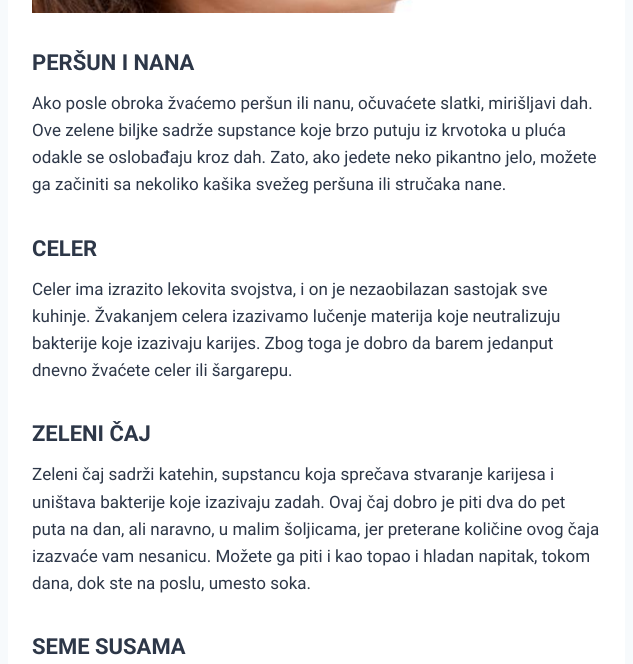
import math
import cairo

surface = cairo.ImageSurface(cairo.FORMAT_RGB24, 633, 664)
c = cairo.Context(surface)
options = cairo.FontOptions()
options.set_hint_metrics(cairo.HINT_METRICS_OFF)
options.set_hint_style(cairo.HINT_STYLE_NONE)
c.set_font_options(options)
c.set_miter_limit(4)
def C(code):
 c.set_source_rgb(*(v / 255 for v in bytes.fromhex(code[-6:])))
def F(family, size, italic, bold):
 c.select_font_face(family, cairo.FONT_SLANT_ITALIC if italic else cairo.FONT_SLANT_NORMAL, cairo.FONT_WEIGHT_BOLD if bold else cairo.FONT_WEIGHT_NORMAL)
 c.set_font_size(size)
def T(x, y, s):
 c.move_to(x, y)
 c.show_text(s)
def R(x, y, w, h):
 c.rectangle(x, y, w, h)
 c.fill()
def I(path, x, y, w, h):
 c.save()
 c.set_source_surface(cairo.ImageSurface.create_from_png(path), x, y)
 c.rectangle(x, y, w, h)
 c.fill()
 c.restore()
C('f7fafc')
c.paint()
C('ffffff')
R(8,0,617,664)
I('1.png',32,0,381,13)
F('Roboto',22,0,1)
C('2d3748')
T(32,70,'PERŠUN I NANA')
F('Roboto',17,0,0)
T(32,109,'Ako posle obroka žvaćemo peršun ili nanu, očuvaćete slatki, mirišljavi dah.')
T(32,136,'Ove zelene biljke sadrže supstance koje brzo putuju iz krvotoka u pluća')
T(32,163,'odakle se oslobađaju kroz dah. Zato, ako jedete neko pikantno jelo, možete')
T(32,190,'ga začiniti sa nekoliko kašika svežeg peršuna ili stručaka nane.')
F('Roboto',22,0,1)
T(32,256,'CELER')
F('Roboto',17,0,0)
T(32,295,'Celer ima izrazito lekovita svojstva, i on je nezaobilazan sastojak sve')
T(32,322,'kuhinje. Žvakanjem celera izazivamo lučenje materija koje neutralizuju')
T(32,349,'bakterije koje izazivaju karijes. Zbog toga je dobro da barem jedanput')
T(32,376,'dnevno žvaćete celer ili šargarepu.')
F('Roboto',22,0,1)
T(32,441,'ZELENI ČAJ')
F('Roboto',17,0,0)
T(32,480,'Zeleni čaj sadrži katehin, supstancu koja sprečava stvaranje karijesa i')
T(32,508,'uništava bakterije koje izazivaju zadah. Ovaj čaj dobro je piti dva do pet')
T(32,535,'puta na dan, ali naravno, u malim šoljicama, jer preterane količine ovog čaja')
T(32,562,'izazvaće vam nesanicu. Možete ga piti i kao topao i hladan napitak, tokom')
T(32,589,'dana, dok ste na poslu, umesto soka.')
F('Roboto',22,0,1)
T(32,654,'SEME SUSAMA')
surface.write_to_png('o.png')
